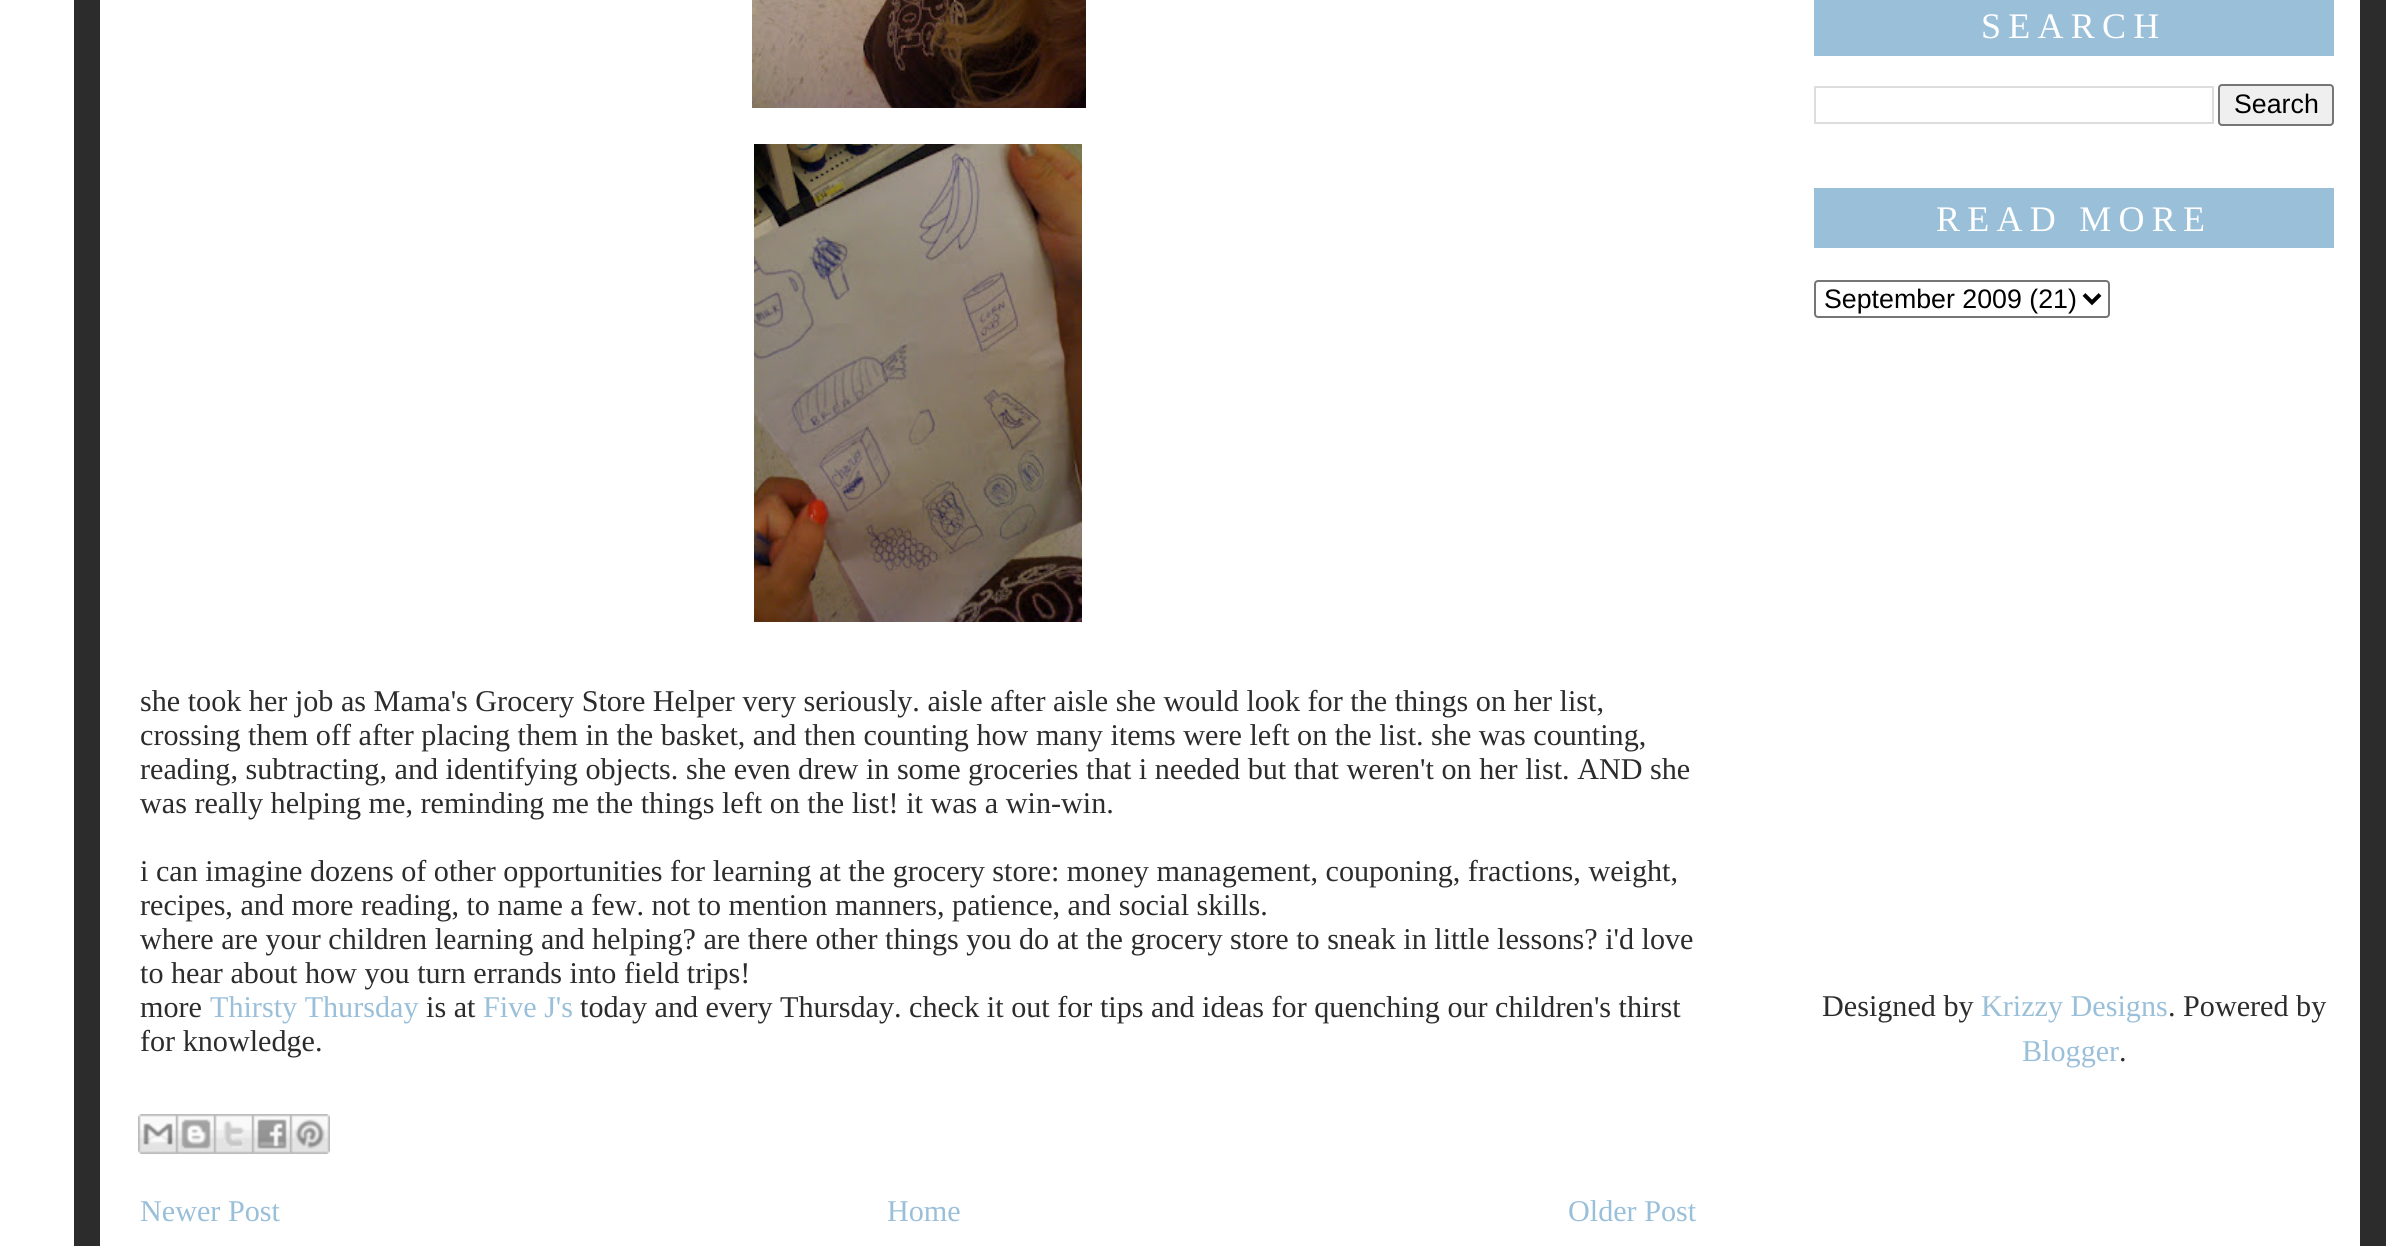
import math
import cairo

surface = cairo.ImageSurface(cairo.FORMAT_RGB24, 2407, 1246)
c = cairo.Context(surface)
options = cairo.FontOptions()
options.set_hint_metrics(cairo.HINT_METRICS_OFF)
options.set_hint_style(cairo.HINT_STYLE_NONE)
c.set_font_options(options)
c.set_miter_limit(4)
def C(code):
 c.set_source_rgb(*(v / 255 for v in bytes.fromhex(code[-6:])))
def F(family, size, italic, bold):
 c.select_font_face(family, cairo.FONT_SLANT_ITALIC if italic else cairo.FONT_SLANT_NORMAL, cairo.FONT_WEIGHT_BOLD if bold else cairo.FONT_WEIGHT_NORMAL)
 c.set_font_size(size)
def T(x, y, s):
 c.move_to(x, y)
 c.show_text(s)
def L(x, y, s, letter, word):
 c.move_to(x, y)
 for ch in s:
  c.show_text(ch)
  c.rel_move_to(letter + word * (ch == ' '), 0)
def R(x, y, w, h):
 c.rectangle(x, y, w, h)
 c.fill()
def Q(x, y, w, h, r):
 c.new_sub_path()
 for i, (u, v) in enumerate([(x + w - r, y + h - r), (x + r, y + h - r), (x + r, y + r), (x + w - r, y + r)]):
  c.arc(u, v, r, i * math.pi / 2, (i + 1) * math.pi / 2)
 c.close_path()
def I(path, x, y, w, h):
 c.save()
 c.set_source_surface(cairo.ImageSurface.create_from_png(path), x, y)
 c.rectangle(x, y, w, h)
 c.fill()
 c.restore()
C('ffffff')
c.paint()
C('2c2c2c')
R(2360,0,26,1246)
R(74,0,26,1246)
I('1.png',752,0,334,108)
I('2.png',754,144,328,478)
F('Liberation Serif',30.15,0,0)
T(140,711,'she took her job as Mama\'s Grocery Store Helper very seriously. aisle after aisle she would look for the things on her list,')
T(140,745,'crossing them off after placing them in the basket, and then counting how many items were left on the list. she was counting,')
T(140,779,'reading, subtracting, and identifying objects. she even drew in some groceries that i needed but that weren\'t on her list. AND she')
T(140,813,'was really helping me, reminding me the things left on the list! it was a win-win.')
T(140,881,'i can imagine dozens of other opportunities for learning at the grocery store: money management, couponing, fractions, weight,')
T(140,915,'recipes, and more reading, to name a few. not to mention manners, patience, and social skills.')
T(140,949,'where are your children learning and helping? are there other things you do at the grocery store to sneak in little lessons? i\'d love')
T(140,983,'to hear about how you turn errands into field trips!')
T(140,1017,'more')
C('9abfd9')
T(210,1017,'Thirsty Thursday')
C('2c2c2c')
T(426,1017,'is at')
C('9abfd9')
T(483,1017,'Five J\'s')
C('2c2c2c')
T(580,1017,'today and every Thursday. check it out for tips and ideas for quenching our children\'s thirst')
T(140,1051,'for knowledge.')
I('3.png',138,1114,38,40)
I('4.png',176,1114,38,40)
I('5.png',214,1114,38,40)
I('6.png',252,1114,38,40)
I('7.png',290,1114,40,40)
C('9abfd9')
T(140,1221,'Newer Post')
T(887,1221,'Home')
T(1568,1221,'Older Post')
R(1814,0,520,56)
F('Liberation Serif',36,0,0)
C('ffffff')
L(1981,38,'SEARCH',7.25,0)
c.rectangle(1815,87,398,36)
C('dddddd')
c.stroke()
C('efefef')
Q(2219,85,114,40,3)
c.fill_preserve()
C('767676')
c.stroke()
F('Liberation Sans',26.75,0,0)
C('000000')
T(2234,113,'Search')
C('9abfd9')
R(1814,188,520,60)
F('Liberation Serif',36,0,0)
C('ffffff')
L(1936,231,'READ MORE',7.25,0)
Q(1815,281,294,36,3)
C('767676')
c.stroke()
c.new_path()
c.move_to(2084,294.5)
c.line_to(2092,302.5)
c.line_to(2100,294.5)
C('000000')
c.set_line_width(4)
c.stroke()
F('Liberation Sans',26.75,0,0)
T(1824,308,'September 2009 (21)')
F('Liberation Serif',30.15,0,0)
C('2c2c2c')
T(1822,1016,'Designed by')
C('9abfd9')
T(1981,1016,'Krizzy Designs')
C('2c2c2c')
T(2168,1016,'. Powered by')
C('9abfd9')
T(2022,1061,'Blogger')
C('2c2c2c')
T(2119,1061,'.')
surface.write_to_png('o.png')
